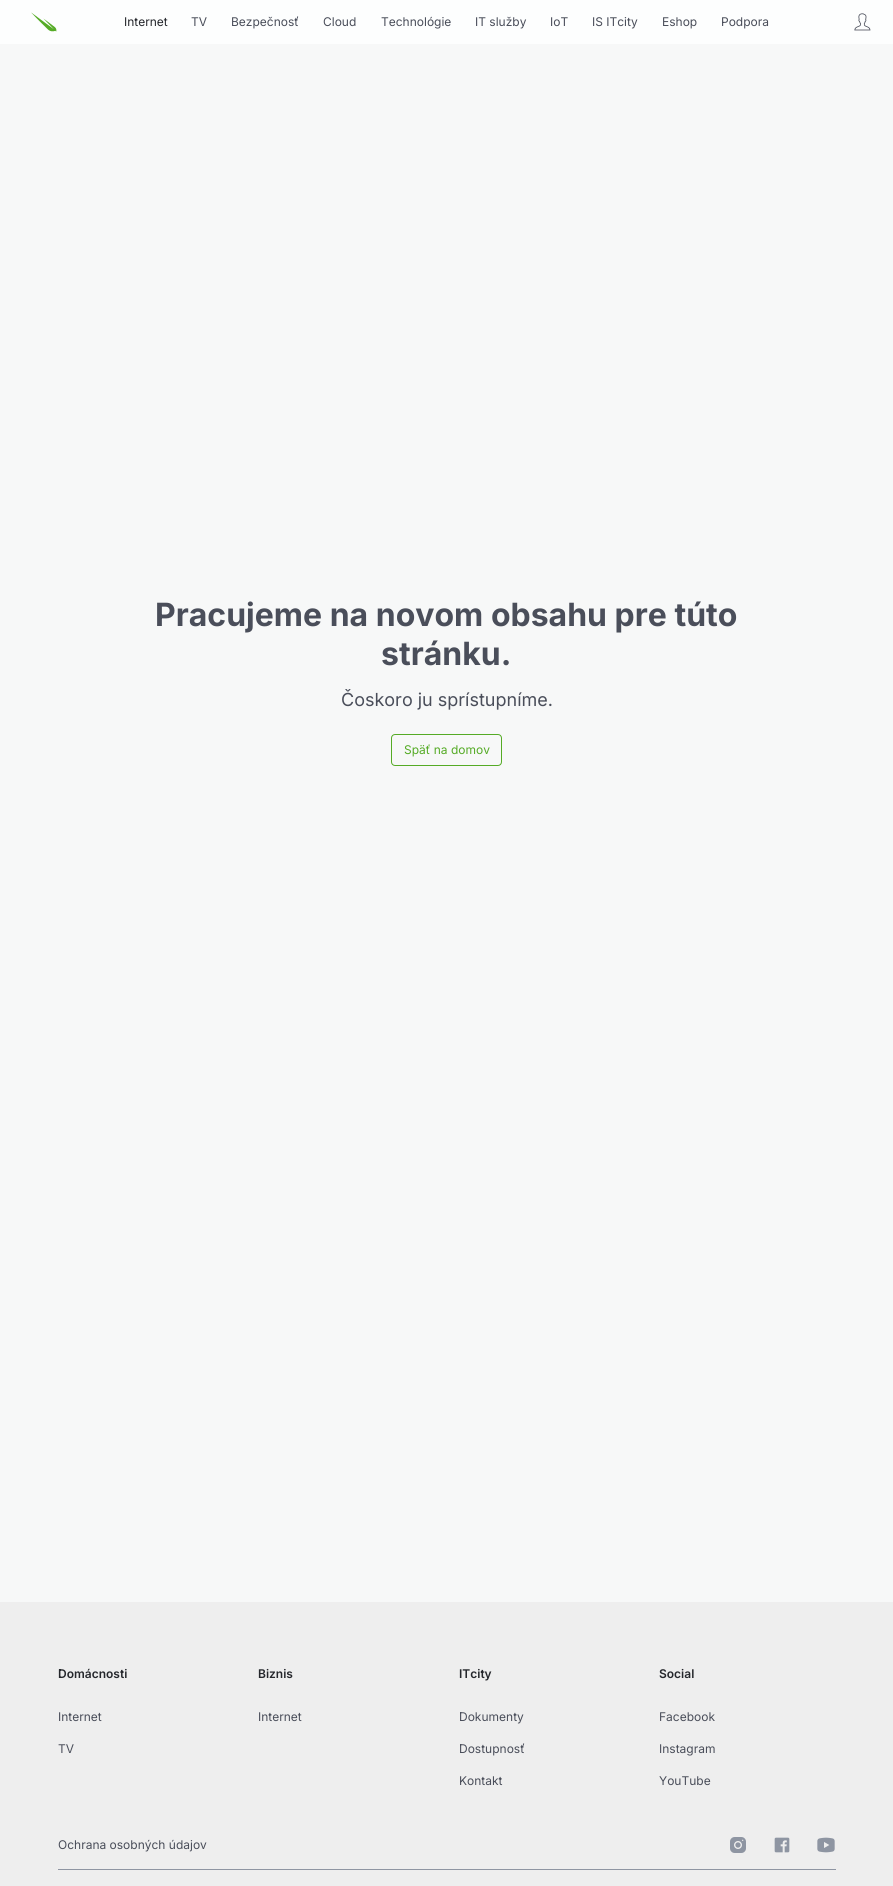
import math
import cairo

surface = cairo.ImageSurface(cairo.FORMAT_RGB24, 893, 1886)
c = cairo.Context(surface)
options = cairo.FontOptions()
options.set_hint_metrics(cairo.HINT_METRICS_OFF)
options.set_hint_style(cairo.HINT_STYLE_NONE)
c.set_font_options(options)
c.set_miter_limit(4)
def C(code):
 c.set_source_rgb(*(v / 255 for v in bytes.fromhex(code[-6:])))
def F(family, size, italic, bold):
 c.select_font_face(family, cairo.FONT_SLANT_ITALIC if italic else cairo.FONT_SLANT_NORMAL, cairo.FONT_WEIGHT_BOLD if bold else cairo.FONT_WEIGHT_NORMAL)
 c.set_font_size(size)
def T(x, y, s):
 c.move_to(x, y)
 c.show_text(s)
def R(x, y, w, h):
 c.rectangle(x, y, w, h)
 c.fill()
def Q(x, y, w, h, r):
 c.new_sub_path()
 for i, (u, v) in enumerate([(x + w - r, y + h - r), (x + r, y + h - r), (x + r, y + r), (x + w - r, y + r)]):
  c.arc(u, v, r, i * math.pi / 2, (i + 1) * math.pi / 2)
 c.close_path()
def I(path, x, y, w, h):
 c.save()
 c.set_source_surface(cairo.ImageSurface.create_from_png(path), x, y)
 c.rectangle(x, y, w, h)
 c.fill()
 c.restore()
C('f7f8f8')
c.paint()
C('fdfefe')
R(0,0,893,44)
I('1.png',31,12,26,20)
F('Inter',12,0,0)
C('25272c')
T(124,26,'Internet')
C('4a4e5a')
T(191,26,'TV')
T(231,26,'Bezpečnosť')
T(323,26,'Cloud')
T(381,26,'Technológie')
T(475,26,'IT služby')
T(550,26,'IoT')
T(592,26,'IS ITcity')
T(662,26,'Eshop')
T(721,26,'Podpora')
I('2.png',854,13,17,18)
F('Inter',32,0,1)
T(155,626,'Pracujeme na novom obsahu pre túto')
T(381,665,'stránku.')
F('Inter',18,0,0)
T(341,706,'Čoskoro ju sprístupníme.')
Q(391.5,734.5,110,31,3.5)
C('55ab26')
c.set_line_width(1)
c.stroke()
F('Inter',12,0,0)
T(404,754,'Späť na domov')
C('eeeeee')
R(0,1602,893,284)
F('Inter SemiBold',12,0,0)
C('25272c')
T(58,1678,'Domácnosti')
F('Inter',12,0,0)
C('4a4e5a')
T(58,1721,'Internet')
T(58,1753,'TV')
F('Inter SemiBold',12,0,0)
C('25272c')
T(258,1678,'Biznis')
F('Inter',12,0,0)
C('4a4e5a')
T(258,1721,'Internet')
F('Inter SemiBold',12,0,0)
C('25272c')
T(459,1678,'ITcity')
F('Inter',12,0,0)
C('4a4e5a')
T(459,1721,'Dokumenty')
T(459,1753,'Dostupnosť')
T(459,1785,'Kontakt')
F('Inter SemiBold',12,0,0)
C('25272c')
T(659,1678,'Social')
F('Inter',12,0,0)
C('4a4e5a')
T(659,1721,'Facebook')
T(659,1753,'Instagram')
T(659,1785,'YouTube')
T(58,1849,'Ochrana osobných údajov')
I('3.png',730,1837,16,16)
I('4.png',774,1837,16,16)
I('5.png',817,1837,18,16)
C('8e95a2')
R(58,1869,778,1)
surface.write_to_png('o.png')
